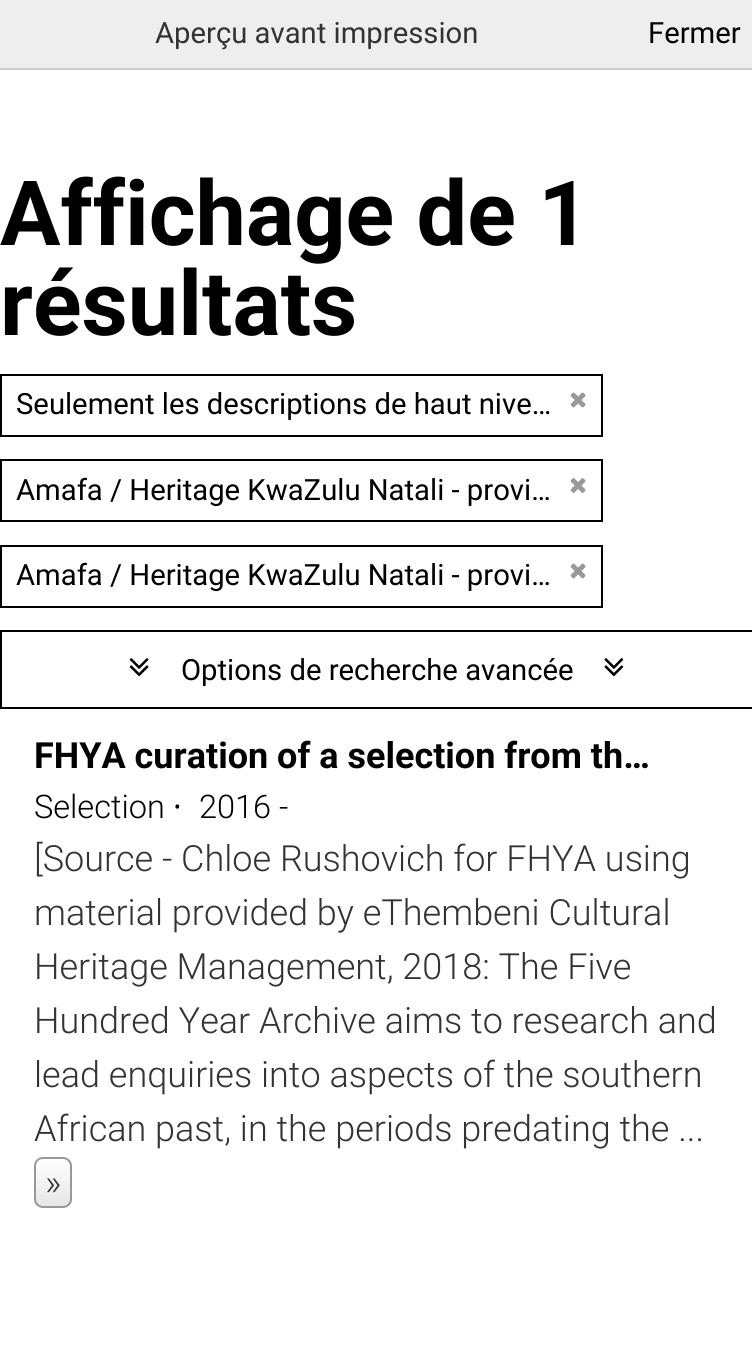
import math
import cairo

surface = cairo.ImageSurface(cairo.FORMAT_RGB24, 752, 1346)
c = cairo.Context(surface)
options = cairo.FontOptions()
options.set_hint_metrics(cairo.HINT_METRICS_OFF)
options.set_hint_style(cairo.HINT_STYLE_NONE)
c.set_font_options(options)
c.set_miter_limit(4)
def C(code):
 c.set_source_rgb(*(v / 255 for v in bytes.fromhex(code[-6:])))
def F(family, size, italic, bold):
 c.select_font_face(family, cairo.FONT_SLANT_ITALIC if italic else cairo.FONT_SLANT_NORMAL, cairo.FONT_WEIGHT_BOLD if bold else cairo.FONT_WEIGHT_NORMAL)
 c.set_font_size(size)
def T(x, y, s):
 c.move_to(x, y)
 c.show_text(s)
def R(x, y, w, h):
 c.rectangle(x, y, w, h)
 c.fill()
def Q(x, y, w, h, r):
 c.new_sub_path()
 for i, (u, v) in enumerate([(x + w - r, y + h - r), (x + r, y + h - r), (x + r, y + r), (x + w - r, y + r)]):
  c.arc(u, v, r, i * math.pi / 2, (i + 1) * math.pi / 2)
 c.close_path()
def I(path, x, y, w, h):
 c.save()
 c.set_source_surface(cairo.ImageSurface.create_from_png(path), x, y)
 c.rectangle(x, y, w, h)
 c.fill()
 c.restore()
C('ffffff')
c.paint()
C('eeeeee')
R(0,0,752,68)
C('cccccc')
R(0,68,752,2)
F('Roboto',29.25,0,0)
C('333333')
T(155,43,'Aperçu avant impression')
C('000000')
T(648,43,'Fermer')
F('Roboto',90,0,1)
T(0,245,'Affichage de 1')
T(0,335,'résultats')
c.rectangle(1,375,601,61)
c.stroke()
F('Roboto',29.25,0,0)
T(16,414,'Seulement les descriptions de haut nive…')
I('1.png',570,392,16,16)
c.rectangle(1,460,601,61)
c.stroke()
T(16,500,'Amafa / Heritage KwaZulu Natali - provi…')
I('2.png',570,478,16,15)
c.rectangle(1,546,601,61)
c.stroke()
T(16,585,'Amafa / Heritage KwaZulu Natali - provi…')
I('1.png',570,563,16,16)
c.rectangle(1,631,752,77)
c.stroke()
I('3.png',129,658,20,19)
T(181,680,'Options de recherche avancée')
I('4.png',604,658,20,19)
F('Roboto',36,0,1)
T(34,768,'FHYA curation of a selection from th…')
F('Roboto Light',32.5,0,0)
T(34,818,'Selection')
F('Open Sans',32.5,0,0)
T(173,818,'·')
F('Roboto Light',32.5,0,0)
T(199,818,'2016 -')
F('Roboto Light',36,0,0)
C('333333')
T(34,871,'[Source - Chloe Rushovich for FHYA using')
T(34,925,'material provided by eThembeni Cultural')
T(34,979,'Heritage Management, 2018: The Five')
T(34,1033,'Hundred Year Archive aims to research and')
T(34,1087,'lead enquiries into aspects of the southern')
T(34,1141,'African past, in the periods predating the ...')
c.save()
Q(34,1157,38,51,9)
c.clip()
gradient = cairo.LinearGradient(53,1159,53,1206)
gradient.add_color_stop_rgba(0,1,1,1,1)
gradient.add_color_stop_rgba(1,0.902,0.902,0.902,1)
c.set_source(gradient)
R(34,1159,38,47)
c.restore()
Q(35,1158,36,49,8)
C('999999')
c.stroke()
C('333333')
T(45,1195,'»')
surface.write_to_png('o.png')
